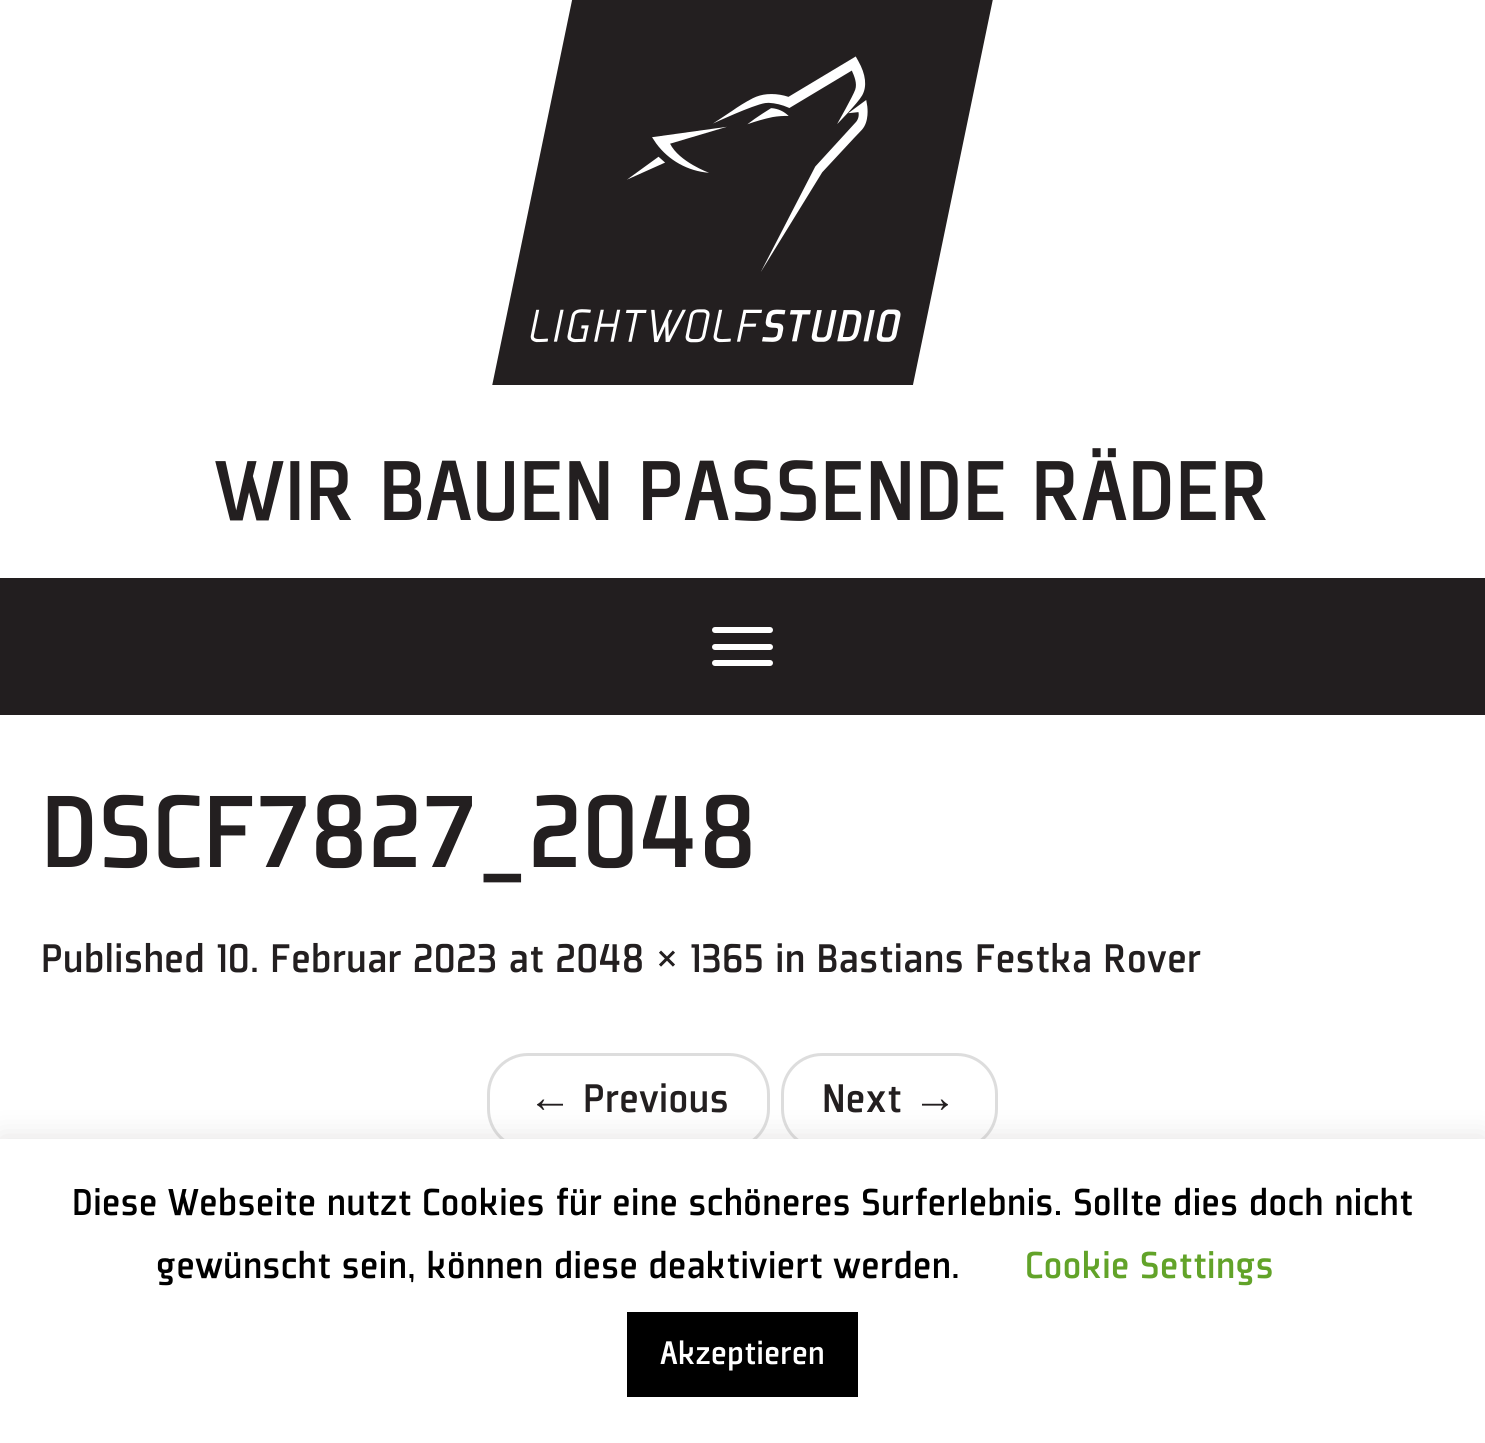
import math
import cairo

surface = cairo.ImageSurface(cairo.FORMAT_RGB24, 1485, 1443)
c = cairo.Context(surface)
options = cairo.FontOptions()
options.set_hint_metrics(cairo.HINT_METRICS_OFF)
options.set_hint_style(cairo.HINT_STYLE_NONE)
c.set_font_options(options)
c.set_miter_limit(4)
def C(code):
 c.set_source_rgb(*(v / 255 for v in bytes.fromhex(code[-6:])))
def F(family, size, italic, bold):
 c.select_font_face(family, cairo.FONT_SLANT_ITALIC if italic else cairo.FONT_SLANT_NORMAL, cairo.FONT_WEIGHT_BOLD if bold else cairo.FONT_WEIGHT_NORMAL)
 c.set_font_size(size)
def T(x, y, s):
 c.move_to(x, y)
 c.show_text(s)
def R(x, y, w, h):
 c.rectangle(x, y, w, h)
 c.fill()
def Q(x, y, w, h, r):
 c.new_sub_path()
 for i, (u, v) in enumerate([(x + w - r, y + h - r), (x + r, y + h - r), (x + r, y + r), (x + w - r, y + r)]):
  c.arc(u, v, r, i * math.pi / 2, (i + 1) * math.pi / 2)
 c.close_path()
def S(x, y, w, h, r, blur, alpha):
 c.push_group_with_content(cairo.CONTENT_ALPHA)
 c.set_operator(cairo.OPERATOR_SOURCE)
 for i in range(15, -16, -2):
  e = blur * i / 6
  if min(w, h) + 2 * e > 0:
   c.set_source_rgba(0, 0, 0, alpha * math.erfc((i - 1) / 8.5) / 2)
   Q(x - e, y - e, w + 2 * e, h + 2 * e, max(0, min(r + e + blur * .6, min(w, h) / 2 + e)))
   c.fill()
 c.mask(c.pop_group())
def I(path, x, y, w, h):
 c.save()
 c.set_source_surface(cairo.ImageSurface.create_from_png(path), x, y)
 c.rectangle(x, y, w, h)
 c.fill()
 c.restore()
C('ffffff')
c.paint()
I('1.png',492,0,501,385)
F('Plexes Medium',93.5,0,0)
C('231f20')
T(214,520,'WIR BAUEN PASSENDE RÄDER')
C('221e1f')
R(0,578,1485,137)
C('ffffff')
Q(712,627,61,6,3)
c.fill()
Q(712,644,61,6,3)
c.fill()
Q(712,660,61,6,3)
c.fill()
F('Plexes Medium',112.75,0,0)
C('231f20')
T(41,867,'DSCF7827_2048')
F('Plexes Medium',44,0,0)
T(41,972,'Published 10. Februar 2023 at 2048 × 1365 in Bastians Festka Rover')
Q(488.5,1054.5,280,94,39.5)
C('dddddd')
c.set_line_width(3)
c.stroke()
F('Liberation Sans',44,0,0)
C('231f20')
T(528,1112,'←')
F('Plexes Medium',44,0,0)
T(583,1112,'Previous')
Q(782.5,1054.5,214,94,39.5)
C('dddddd')
c.stroke()
C('231f20')
T(822,1112,'Next')
F('Liberation Sans',44,0,0)
T(913,1112,'→')
C('acabab')
S(0,1136,1485,305,0,14,.3)
C('ffffff')
R(0,1139,1485,304)
F('Plexes Medium',41.25,0,0)
C('000000')
T(72,1215,'Diese Webseite nutzt Cookies für eine schöneres Surferlebnis. Sollte dies doch nicht')
T(156,1278,'gewünscht sein, können diese deaktiviert werden.')
C('62a329')
T(1025,1278,'Cookie Settings')
C('000000')
R(627,1312,231,85)
F('Plexes Medium',35.75,0,0)
C('ffffff')
T(660,1364,'Akzeptieren')
surface.write_to_png('o.png')
